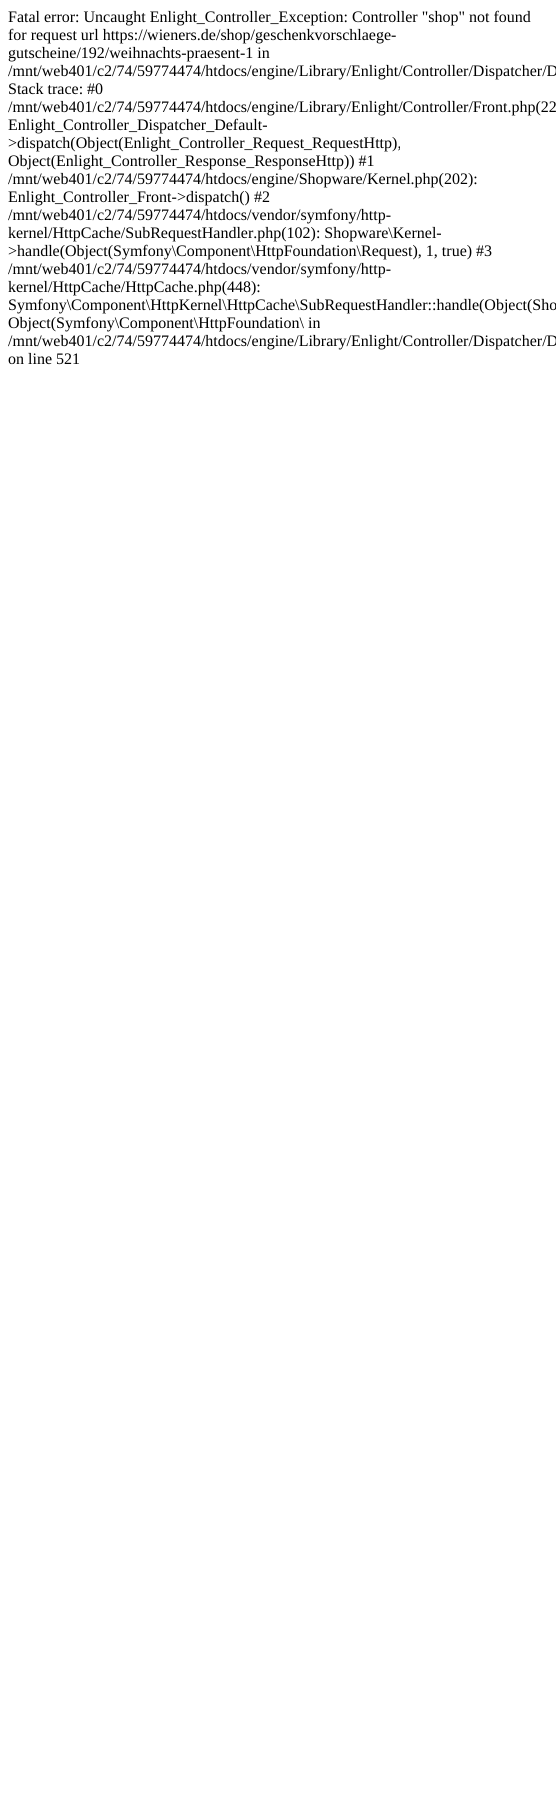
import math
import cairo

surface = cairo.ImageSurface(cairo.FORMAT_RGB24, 556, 1813)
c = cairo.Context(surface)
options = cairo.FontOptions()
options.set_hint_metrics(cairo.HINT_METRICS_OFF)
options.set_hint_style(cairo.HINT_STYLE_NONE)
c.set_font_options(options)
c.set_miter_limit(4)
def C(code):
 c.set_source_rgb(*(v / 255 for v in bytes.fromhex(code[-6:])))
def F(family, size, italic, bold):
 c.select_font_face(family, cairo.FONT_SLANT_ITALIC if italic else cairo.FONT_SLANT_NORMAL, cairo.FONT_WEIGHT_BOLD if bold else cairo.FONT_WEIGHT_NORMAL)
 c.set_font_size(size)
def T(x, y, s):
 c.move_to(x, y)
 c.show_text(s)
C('ffffff')
c.paint()
F('Liberation Serif',16,0,0)
C('000000')
T(8,22,'Fatal error: Uncaught Enlight_Controller_Exception: Controller "shop" not found')
T(8,40,'for request url https://wieners.de/shop/geschenkvorschlaege-')
T(8,58,'gutscheine/192/weihnachts-praesent-1 in')
T(8,76,'/mnt/web401/c2/74/59774474/htdocs/engine/Library/Enlight/Controller/Dispatcher/D')
T(8,94,'Stack trace: #0')
T(8,112,'/mnt/web401/c2/74/59774474/htdocs/engine/Library/Enlight/Controller/Front.php(22')
T(8,130,'Enlight_Controller_Dispatcher_Default-')
T(8,148,'>dispatch(Object(Enlight_Controller_Request_RequestHttp),')
T(8,166,'Object(Enlight_Controller_Response_ResponseHttp)) #1')
T(8,184,'/mnt/web401/c2/74/59774474/htdocs/engine/Shopware/Kernel.php(202):')
T(8,202,'Enlight_Controller_Front->dispatch() #2')
T(8,220,'/mnt/web401/c2/74/59774474/htdocs/vendor/symfony/http-')
T(8,238,'kernel/HttpCache/SubRequestHandler.php(102): Shopware\\Kernel-')
T(8,256,'>handle(Object(Symfony\\Component\\HttpFoundation\\Request), 1, true) #3')
T(8,274,'/mnt/web401/c2/74/59774474/htdocs/vendor/symfony/http-')
T(8,292,'kernel/HttpCache/HttpCache.php(448):')
T(8,310,'Symfony\\Component\\HttpKernel\\HttpCache\\SubRequestHandler::handle(Object(Sho')
T(8,328,'Object(Symfony\\Component\\HttpFoundation\\ in')
T(8,346,'/mnt/web401/c2/74/59774474/htdocs/engine/Library/Enlight/Controller/Dispatcher/D')
T(8,364,'on line 521')
surface.write_to_png('o.png')
